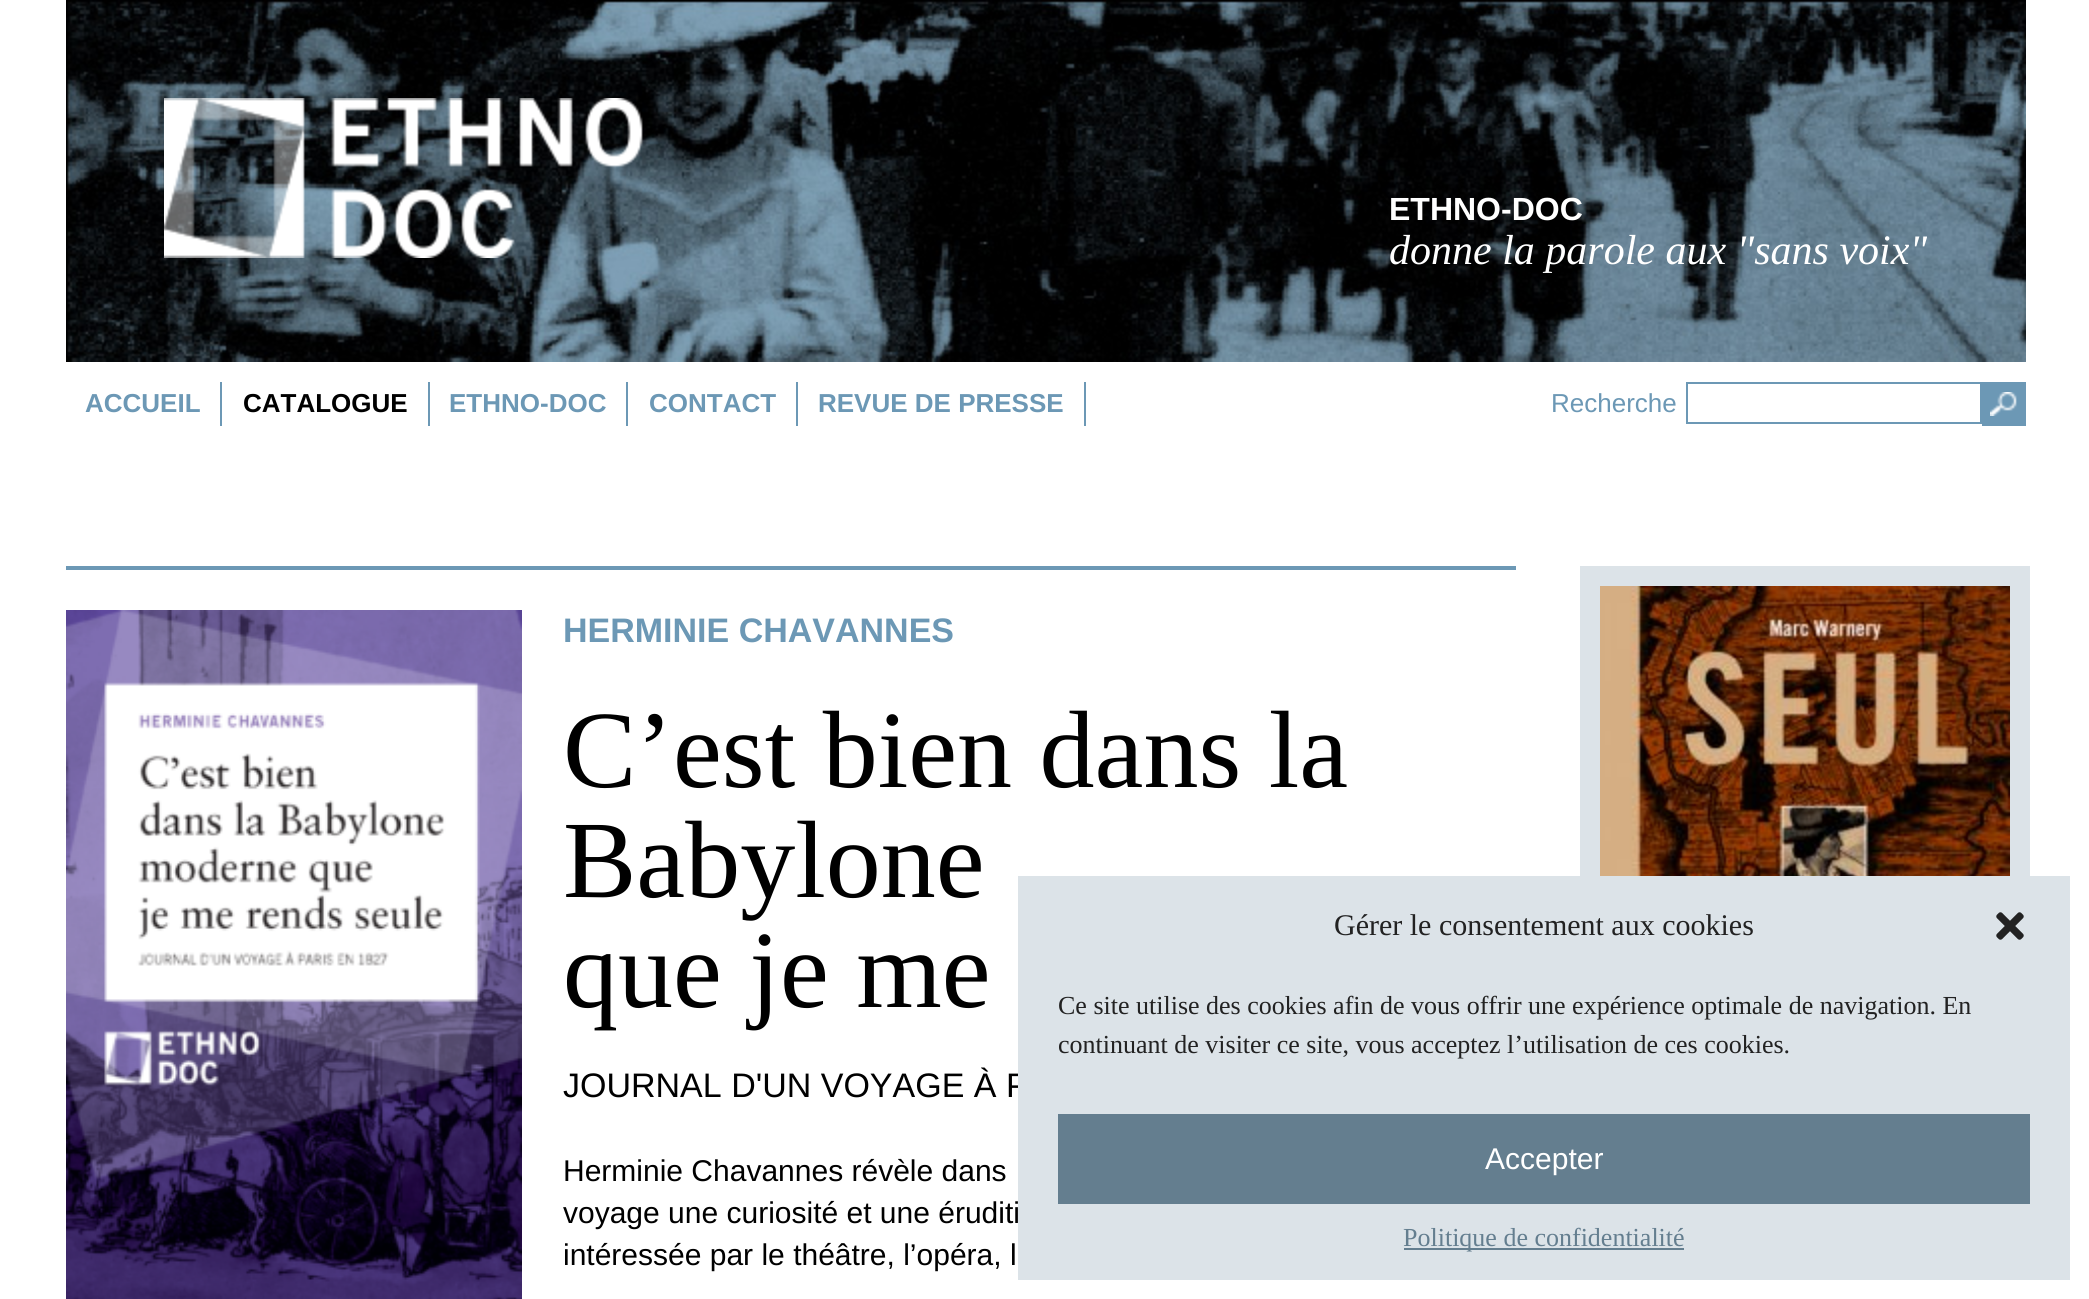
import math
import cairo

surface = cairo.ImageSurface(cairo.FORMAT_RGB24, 2089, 1299)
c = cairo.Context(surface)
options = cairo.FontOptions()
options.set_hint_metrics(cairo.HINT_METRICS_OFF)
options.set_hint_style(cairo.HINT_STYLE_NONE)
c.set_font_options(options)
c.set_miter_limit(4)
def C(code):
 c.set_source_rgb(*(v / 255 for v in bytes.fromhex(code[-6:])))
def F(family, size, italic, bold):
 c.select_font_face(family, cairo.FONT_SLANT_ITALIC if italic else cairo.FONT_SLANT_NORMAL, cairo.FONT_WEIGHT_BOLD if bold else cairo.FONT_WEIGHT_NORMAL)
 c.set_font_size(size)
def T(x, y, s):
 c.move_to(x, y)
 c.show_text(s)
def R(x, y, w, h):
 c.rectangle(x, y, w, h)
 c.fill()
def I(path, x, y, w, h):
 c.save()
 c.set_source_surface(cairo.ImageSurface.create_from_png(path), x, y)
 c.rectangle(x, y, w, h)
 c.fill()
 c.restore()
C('ffffff')
c.paint()
I('1.png',66,0,1960,362)
I('2.png',164,98,479,160)
F('Liberation Sans',32,0,1)
C('ffffff')
T(1389,220,'ETHNO-DOC')
F('Liberation Serif',42,1,0)
T(1389,264,'donne la parole aux "sans voix"')
C('6c98b5')
R(220,382,2,44)
F('Liberation Sans',26,0,1)
T(85,412,'ACCUEIL')
R(428,382,2,44)
C('000000')
T(243,412,'CATALOGUE')
C('6c98b5')
R(626,382,2,44)
T(449,412,'ETHNO-DOC')
R(796,382,2,44)
T(649,412,'CONTACT')
R(1084,382,2,44)
T(818,412,'REVUE DE PRESSE')
F('Liberation Sans',26,0,0)
T(1551,412,'Recherche')
c.rectangle(1687,383,294,40)
c.stroke()
R(1982,382,44,44)
I('3.png',1990,392,27,24)
R(66,566,1450,4)
I('4.png',66,610,456,689)
F('Liberation Sans',34,0,1)
T(563,642,'HERMINIE CHAVANNES')
F('Liberation Serif',110,0,0)
C('000000')
T(563,787,'C’est bien dans la')
T(563,897,'Babylone')
T(563,1007,'que je me')
F('Liberation Sans',34,0,0)
T(563,1097,'JOURNAL D\'UN VOYAGE À P')
F('Liberation Sans',30,0,0)
T(563,1181,'Herminie Chavannes révèle dans')
T(563,1223,'voyage une curiosité et une éruditi')
T(563,1265,'intéressée par le théâtre, l’opéra, l')
c.rectangle(1590,576,430,650)
C('dce3e8')
c.set_line_width(20)
c.stroke()
I('5.png',1600,586,410,290)
R(1018,876,1052,404)
F('Liberation Serif',30,0,0)
C('222222')
T(1334,935,'Gérer le consentement aux cookies')
I('6.png',1996,912,28,28)
F('Liberation Serif',26,0,0)
T(1058,1014,'Ce site utilise des cookies afin de vous offrir une expérience optimale de navigation. En')
T(1058,1053,'continuant de visiter ce site, vous acceptez l’utilisation de ces cookies.')
C('647e8f')
R(1058,1114,972,90)
F('Liberation Sans',30,0,0)
C('ffffff')
T(1485,1169,'Accepter')
C('647e8f')
R(1404,1248,280,2)
F('Liberation Serif',26,0,0)
T(1403,1246,'Politique de confidentialité')
surface.write_to_png('o.png')
